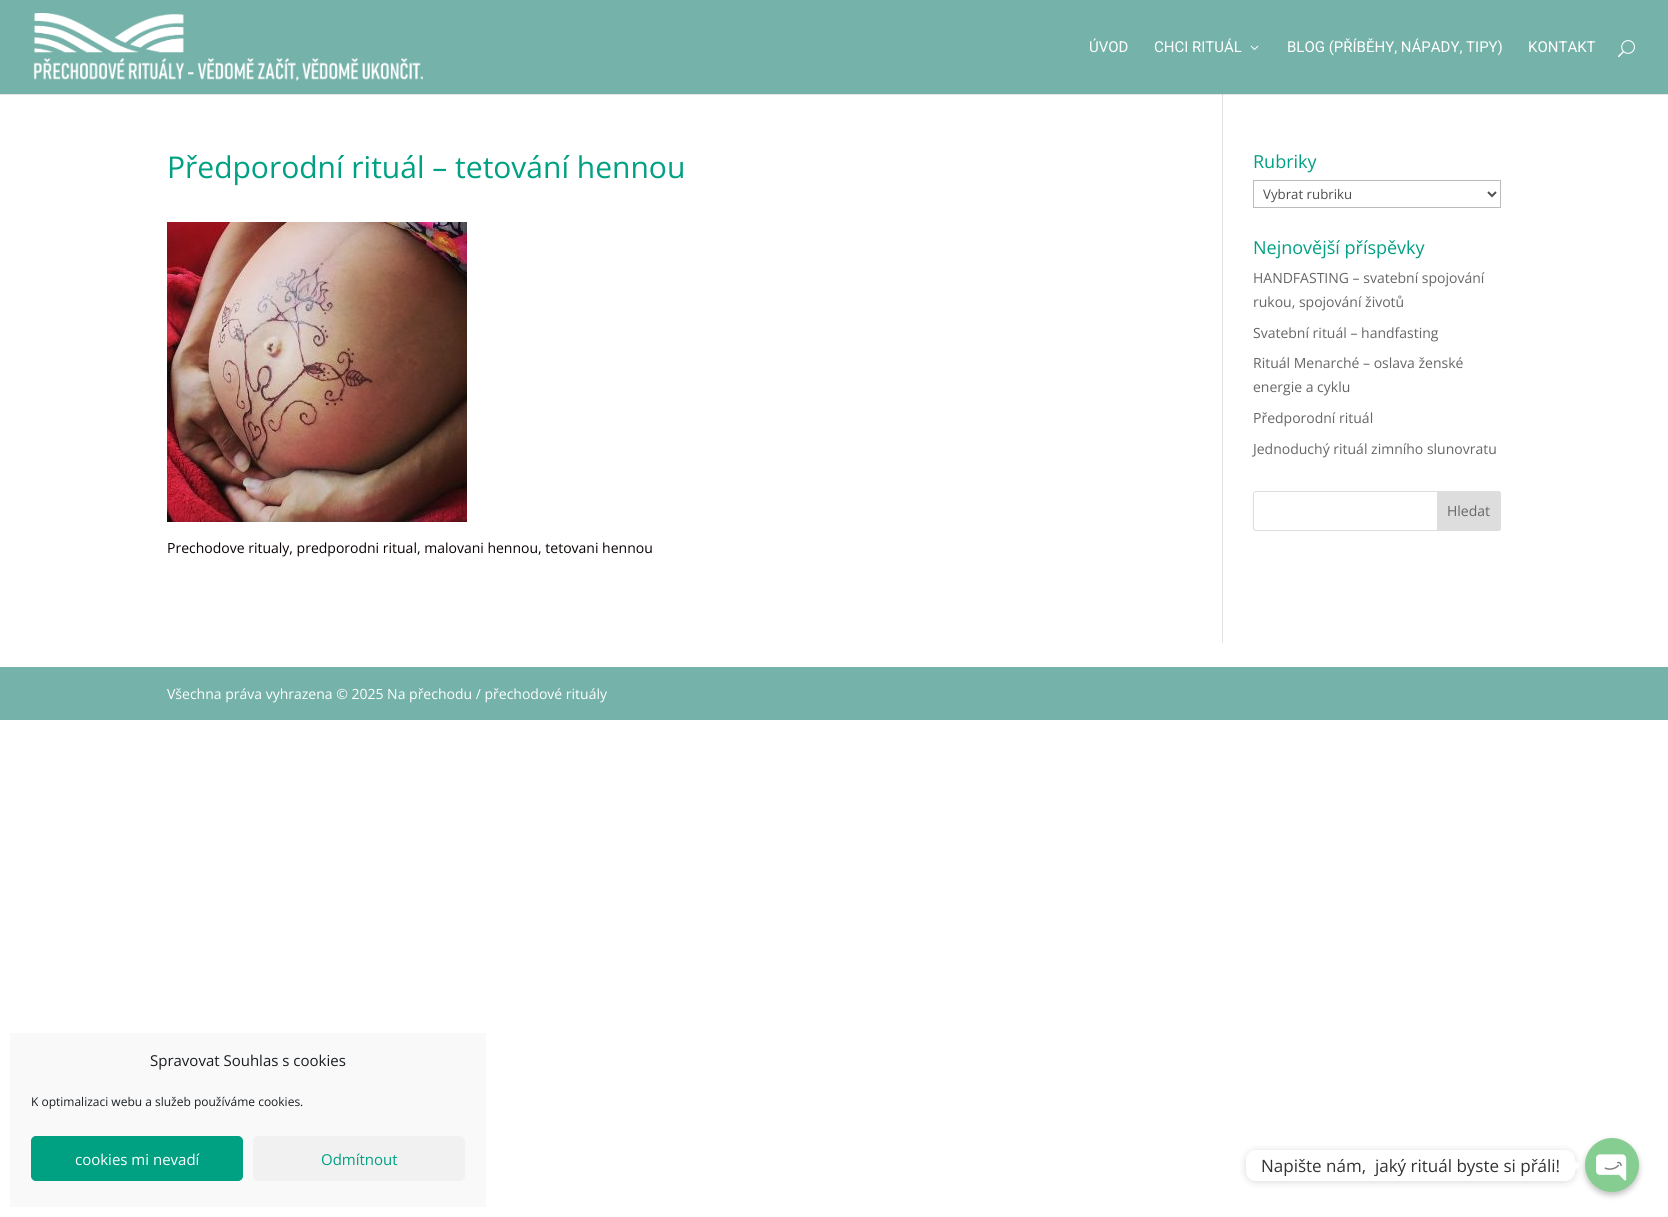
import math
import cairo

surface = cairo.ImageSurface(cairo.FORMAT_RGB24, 1668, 1217)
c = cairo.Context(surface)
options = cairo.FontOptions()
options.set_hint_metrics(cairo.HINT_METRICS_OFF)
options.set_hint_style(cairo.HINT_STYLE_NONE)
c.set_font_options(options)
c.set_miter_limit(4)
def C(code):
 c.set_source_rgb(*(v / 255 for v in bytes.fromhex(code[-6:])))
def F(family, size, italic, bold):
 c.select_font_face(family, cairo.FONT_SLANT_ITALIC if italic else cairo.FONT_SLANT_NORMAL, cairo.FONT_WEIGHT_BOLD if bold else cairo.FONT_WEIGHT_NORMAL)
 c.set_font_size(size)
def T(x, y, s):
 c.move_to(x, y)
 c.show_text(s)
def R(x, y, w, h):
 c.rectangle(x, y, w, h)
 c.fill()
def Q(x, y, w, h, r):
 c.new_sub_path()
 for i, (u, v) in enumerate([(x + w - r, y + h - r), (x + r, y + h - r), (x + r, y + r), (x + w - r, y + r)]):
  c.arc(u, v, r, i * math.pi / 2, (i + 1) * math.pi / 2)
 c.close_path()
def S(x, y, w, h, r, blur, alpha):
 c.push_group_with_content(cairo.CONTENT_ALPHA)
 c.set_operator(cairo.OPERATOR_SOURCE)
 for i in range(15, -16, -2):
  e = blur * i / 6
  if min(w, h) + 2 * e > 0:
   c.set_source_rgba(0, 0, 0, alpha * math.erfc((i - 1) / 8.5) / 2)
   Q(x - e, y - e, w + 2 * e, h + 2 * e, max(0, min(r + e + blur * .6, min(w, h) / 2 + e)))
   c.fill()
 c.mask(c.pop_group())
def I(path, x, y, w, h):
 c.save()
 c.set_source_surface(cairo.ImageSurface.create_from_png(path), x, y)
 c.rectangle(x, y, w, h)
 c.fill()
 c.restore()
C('ffffff')
c.paint()
C('e6e6e6')
R(0,94,1668,1)
C('75b2a9')
R(0,0,1668,94)
I('1.png',33,13,390,68)
F('Roboto',15,0,0)
C('ffffff')
T(1089,52,'ÚVOD')
T(1154,52,'CHCI RITUÁL')
I('2.png',1250,45,9,5)
T(1287,52,'BLOG (PŘÍBĚHY, NÁPADY, TIPY)')
T(1528,52,'KONTAKT')
I('3.png',1618,40,17,18)
C('e2e2e2')
R(1222,94,1,549)
C('cbcbcb')
R(1222,94,1,1)
F('Open Sans',30,0,0)
C('00a083')
T(167,178,'Předporodní rituál – tetování hennou')
I('4.png',167,222,300,300)
F('Open Sans',14,0,0)
C('0a0202')
T(167,553,'Prechodove ritualy, predporodni ritual, malovani hennou, tetovani hennou')
F('Open Sans',18,0,0)
C('00a083')
T(1253,168,'Rubriky')
c.rectangle(1253.5,180.5,247,27)
C('bbbbbb')
c.set_line_width(1)
c.stroke()
c.new_path()
c.move_to(1488,192)
c.line_to(1492,196)
c.line_to(1496,192)
C('4e4e4e')
c.set_line_width(2)
c.stroke()
F('Open Sans',13.25,0,0)
T(1263,199,'Vybrat rubriku')
F('Open Sans',18,0,0)
C('00a083')
T(1253,254,'Nejnovější příspěvky')
F('Open Sans',14,0,0)
C('666666')
T(1253,283,'HANDFASTING – svatební spojování')
T(1253,307,'rukou, spojování životů')
T(1253,338,'Svatební rituál – handfasting')
T(1253,368,'Rituál Menarché – oslava ženské')
T(1253,392,'energie a cyklu')
T(1253,423,'Předporodní rituál')
T(1253,454,'Jednoduchý rituál zimního slunovratu')
Q(1253.5,491.5,247,39,2.5)
C('dddddd')
c.set_line_width(1)
c.stroke()
c.new_path()
c.move_to(1437.5,491.5)
c.line_to(1498,491.5)
c.curve_to(1499.5,491.5,1500.5,492.5,1500.5,494)
c.line_to(1500.5,528)
c.curve_to(1500.5,529.5,1499.5,530.5,1498,530.5)
c.line_to(1437.5,530.5)
c.close_path()
c.fill_preserve()
c.stroke()
C('666666')
T(1447,516,'Hledat')
C('75b2a9')
R(0,667,1668,53)
C('ffffff')
T(167,699,'Všechna práva vyhrazena © 2025 Na přechodu / přechodové rituály')
C('f9f9f9')
R(10,1033,476,174)
F('Open Sans',15,0,0)
C('191e23')
T(150,1066,'Spravovat Souhlas s cookies')
F('Open Sans',12,0,0)
T(31,1106,'K optimalizaci webu a služeb používáme cookies.')
C('00a083')
Q(31.5,1136.5,211,44,4.5)
c.fill_preserve()
c.stroke()
F('Open Sans',15,0,0)
C('ffffff')
T(75,1165,'cookies mi nevadí')
C('f1f1f1')
Q(253,1136,212,45,5)
c.fill()
C('00a083')
T(321,1165,'Odmítnout')
C('000000')
S(1246,1151,329,31,10,4,.15)
C('ffffff')
Q(1246,1150,329,31,10)
c.fill()
F('Open Sans',17,0,0)
C('333333')
T(1261,1172,'Napište nám,  jaký rituál byste si přáli!')
C('ffffff')
c.new_path()
c.move_to(1575,1170.5)
c.line_to(1575,1160.5)
c.line_to(1580,1165.5)
c.close_path()
c.fill()
C('000000')
S(1585,1141,54,54,27,3,.25)
I('5.png',1585,1138,54,54)
surface.write_to_png('o.png')
